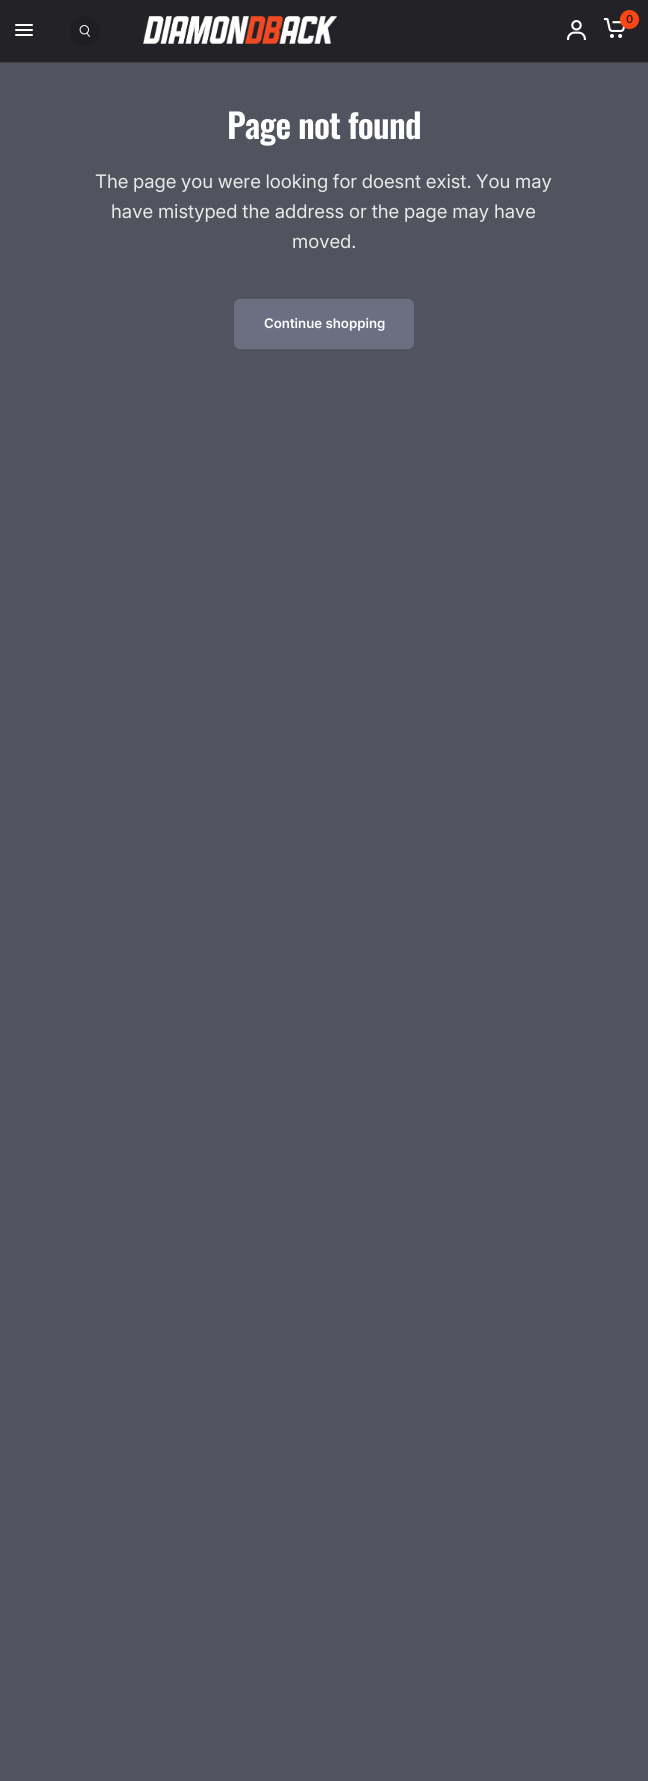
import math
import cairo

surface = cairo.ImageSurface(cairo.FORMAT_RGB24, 648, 1781)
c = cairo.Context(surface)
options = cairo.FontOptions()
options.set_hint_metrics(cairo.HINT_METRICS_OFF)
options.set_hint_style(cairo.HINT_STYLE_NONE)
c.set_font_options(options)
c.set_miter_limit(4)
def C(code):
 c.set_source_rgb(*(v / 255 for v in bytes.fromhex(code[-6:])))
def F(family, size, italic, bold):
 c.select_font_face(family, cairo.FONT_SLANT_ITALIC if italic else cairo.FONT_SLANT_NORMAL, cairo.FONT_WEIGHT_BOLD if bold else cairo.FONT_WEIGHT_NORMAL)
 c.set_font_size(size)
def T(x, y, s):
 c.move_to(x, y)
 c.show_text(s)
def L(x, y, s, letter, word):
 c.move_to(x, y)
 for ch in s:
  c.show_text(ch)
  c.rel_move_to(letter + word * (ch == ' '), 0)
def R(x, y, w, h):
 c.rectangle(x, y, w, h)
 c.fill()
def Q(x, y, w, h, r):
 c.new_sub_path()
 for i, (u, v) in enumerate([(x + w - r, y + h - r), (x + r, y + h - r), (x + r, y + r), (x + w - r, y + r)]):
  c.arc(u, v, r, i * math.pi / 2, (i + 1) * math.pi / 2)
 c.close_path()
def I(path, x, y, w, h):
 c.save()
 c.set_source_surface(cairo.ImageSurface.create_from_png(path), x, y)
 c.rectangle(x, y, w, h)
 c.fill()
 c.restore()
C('51535e')
c.paint()
C('222227')
R(0,0,648,62)
I('1.png',70,16,30,30)
C('ffffff')
Q(15,24,18,2,1)
c.fill()
Q(15,29,18,2,1)
c.fill()
Q(15,34,18,2,1)
c.fill()
I('2.png',143,16,194,28)
I('3.png',603,18,22,20)
C('fe4713')
c.arc(629.5,19.5,9.5,0,2 * math.pi)
c.fill()
F('Inter SemiBold',11,0,0)
C('222227')
T(626,23,'0')
I('4.png',567,20,19,20)
C('454545')
R(0,62,648,1)
F('Oswald SemiBold',34,0,0)
C('ffffff')
L(227,139,'Page not found',-.75,0)
F('Inter',18.7,0,0)
C('eaeaea')
L(95,188,'The page you were looking for doesnt exist. You may',0,-.5)
L(111,218,'have mistyped the address or the page may have',0,-.25)
T(292,248,'moved.')
C('6c6f81')
Q(234,299,180,50,6)
c.fill()
F('Inter SemiBold',13.25,0,0)
C('ffffff')
T(264,328,'Continue shopping')
surface.write_to_png('o.png')
